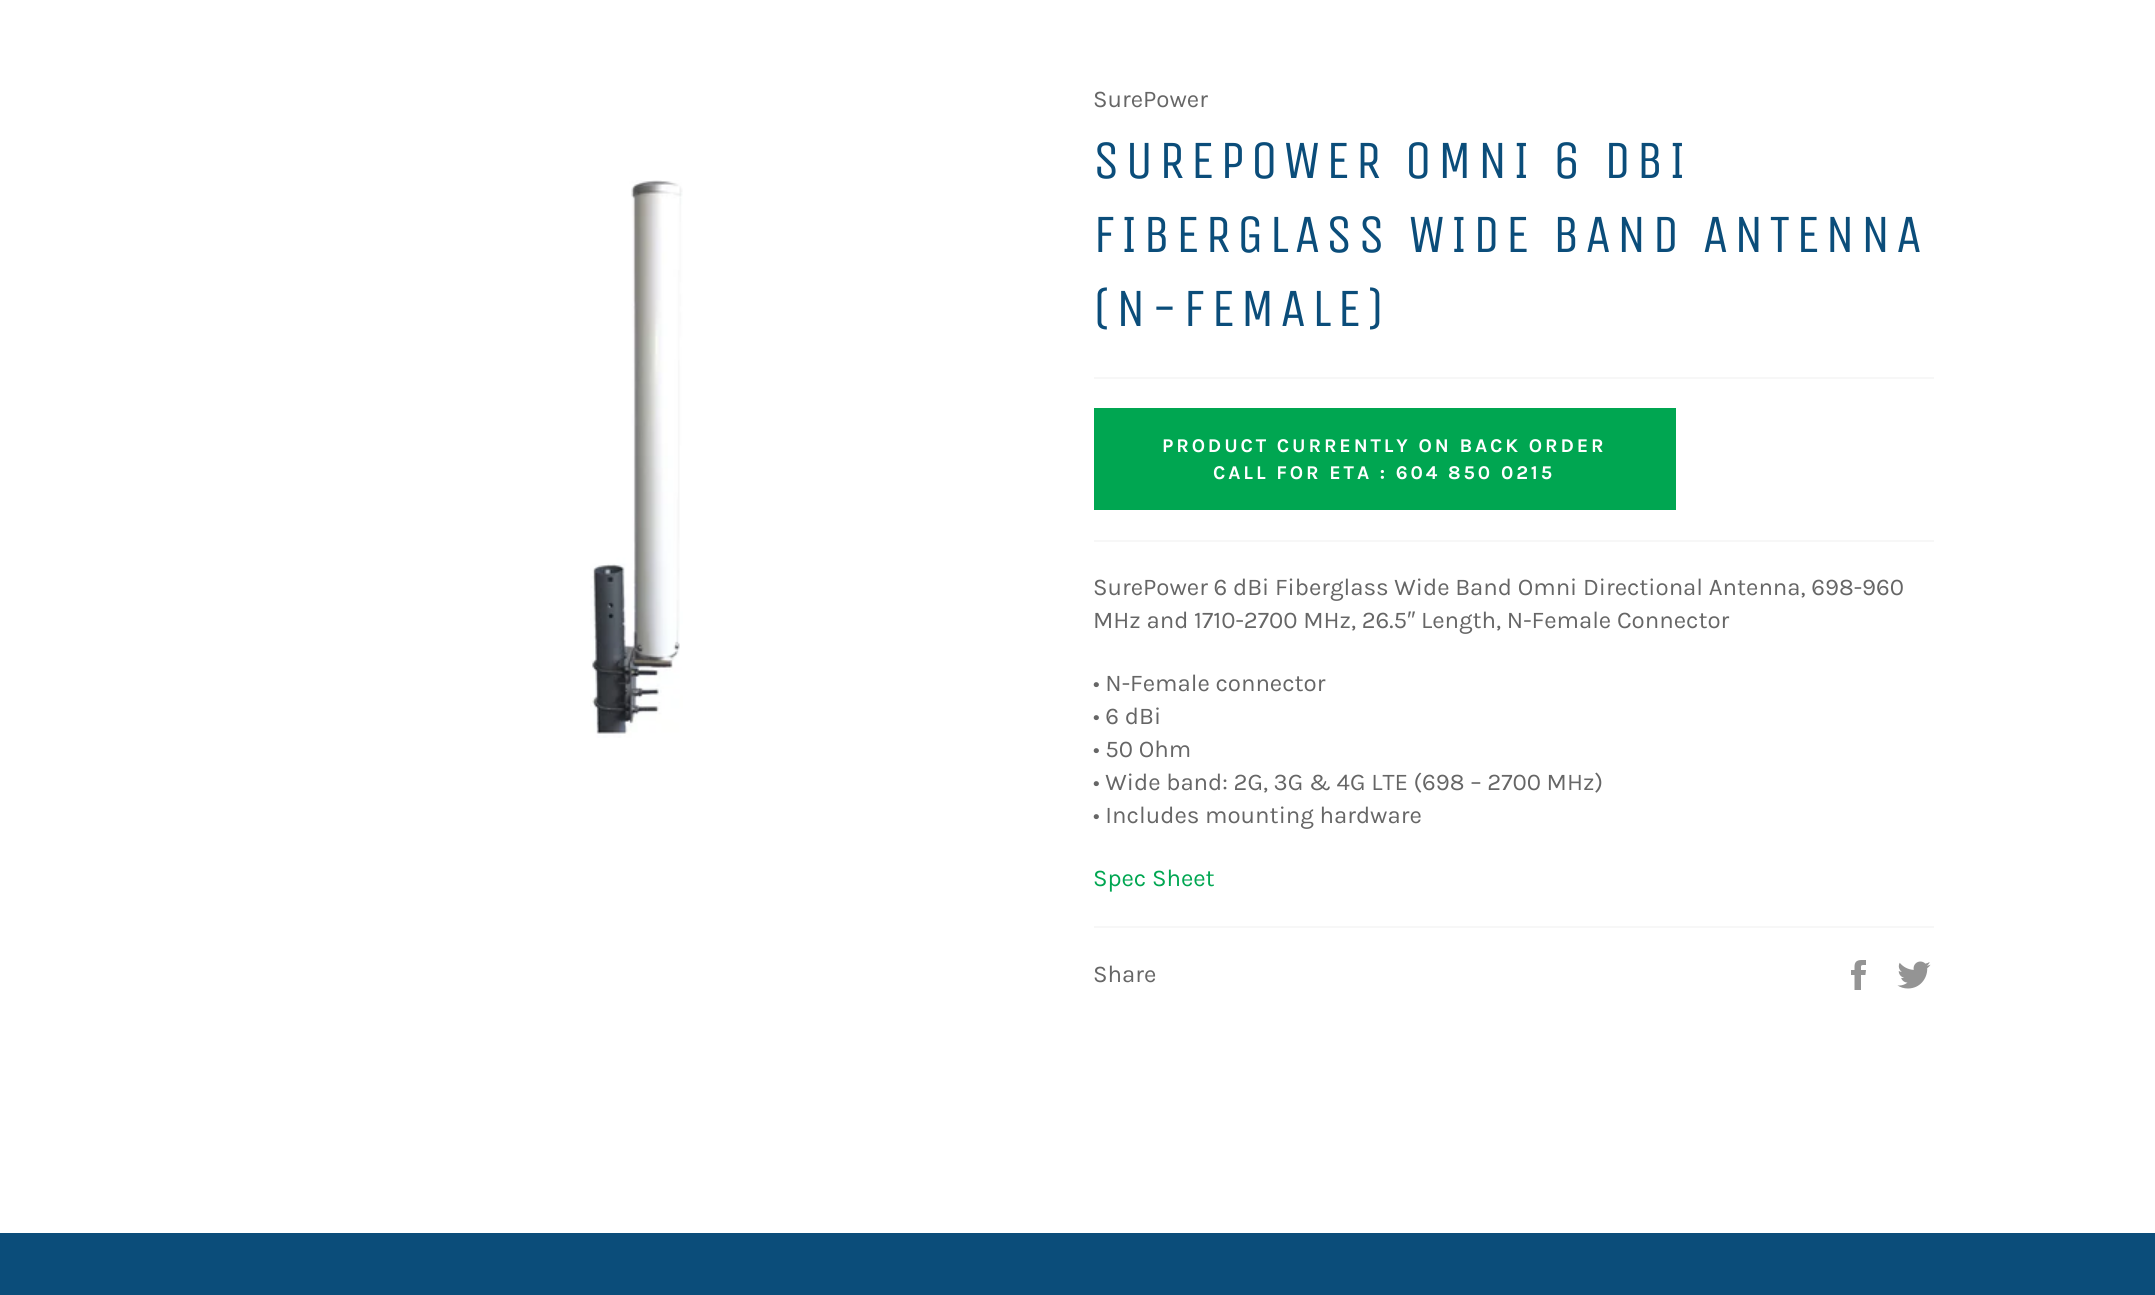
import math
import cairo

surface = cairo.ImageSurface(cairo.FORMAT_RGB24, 2155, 1295)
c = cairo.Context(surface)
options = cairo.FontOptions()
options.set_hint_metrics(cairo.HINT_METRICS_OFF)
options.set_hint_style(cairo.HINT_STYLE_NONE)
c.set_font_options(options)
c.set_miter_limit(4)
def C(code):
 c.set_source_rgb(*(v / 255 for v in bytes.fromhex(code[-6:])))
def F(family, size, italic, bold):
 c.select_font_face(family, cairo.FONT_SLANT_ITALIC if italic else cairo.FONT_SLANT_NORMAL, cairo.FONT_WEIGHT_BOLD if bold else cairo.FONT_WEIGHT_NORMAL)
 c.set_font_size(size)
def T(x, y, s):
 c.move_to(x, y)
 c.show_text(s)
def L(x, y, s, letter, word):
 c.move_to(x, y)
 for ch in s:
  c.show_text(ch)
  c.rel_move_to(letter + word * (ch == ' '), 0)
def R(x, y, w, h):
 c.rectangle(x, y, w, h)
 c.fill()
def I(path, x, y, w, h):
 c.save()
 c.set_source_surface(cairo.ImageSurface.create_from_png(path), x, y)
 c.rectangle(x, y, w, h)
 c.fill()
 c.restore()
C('ffffff')
c.paint()
I('1.png',590,180,93,558)
F('Karla',24,0,0)
C('666666')
T(1093,107,'SurePower')
F('Unica One',54,0,0)
C('0b4d7a')
L(1093,178,'SUREPOWER OMNI 6 DBI',5.4,0)
L(1093,252,'FIBERGLASS WIDE BAND ANTENNA',5.4,0)
L(1093,326,'(N-FEMALE)',5.4,0)
C('f7f7f7')
R(1094,377,840,2)
C('00a651')
R(1094,408,582,102)
F('Karla',19.5,0,1)
C('ffffff')
L(1162,452,'PRODUCT CURRENTLY ON BACK ORDER',2.9,0)
L(1213,479,'CALL FOR ETA : 604 850 0215',2.9,0)
C('f7f7f7')
R(1094,540,840,2)
F('Karla',24,0,0)
C('666666')
T(1093,595,'SurePower 6 dBi Fiberglass Wide Band Omni Directional Antenna, 698-960')
T(1093,628,'MHz and 1710-2700 MHz, 26.5')
F('Liberation Sans',24,0,0)
T(1407,628,'″')
F('Karla',24,0,0)
T(1421,628,'Length, N-Female Connector')
T(1093,691,'• N-Female connector')
T(1093,724,'• 6 dBi')
T(1093,757,'• 50 Ohm')
T(1093,790,'• Wide band: 2G, 3G & 4G LTE (698 – 2700 MHz)')
T(1093,823,'• Includes mounting hardware')
C('00a651')
T(1093,886,'Spec Sheet')
C('f7f7f7')
R(1094,926,840,2)
C('666666')
T(1093,982,'Share')
I('2.png',1851,960,15,30)
I('3.png',1897,961,34,28)
C('0b4d7a')
R(0,1233,2155,62)
surface.write_to_png('o.png')
